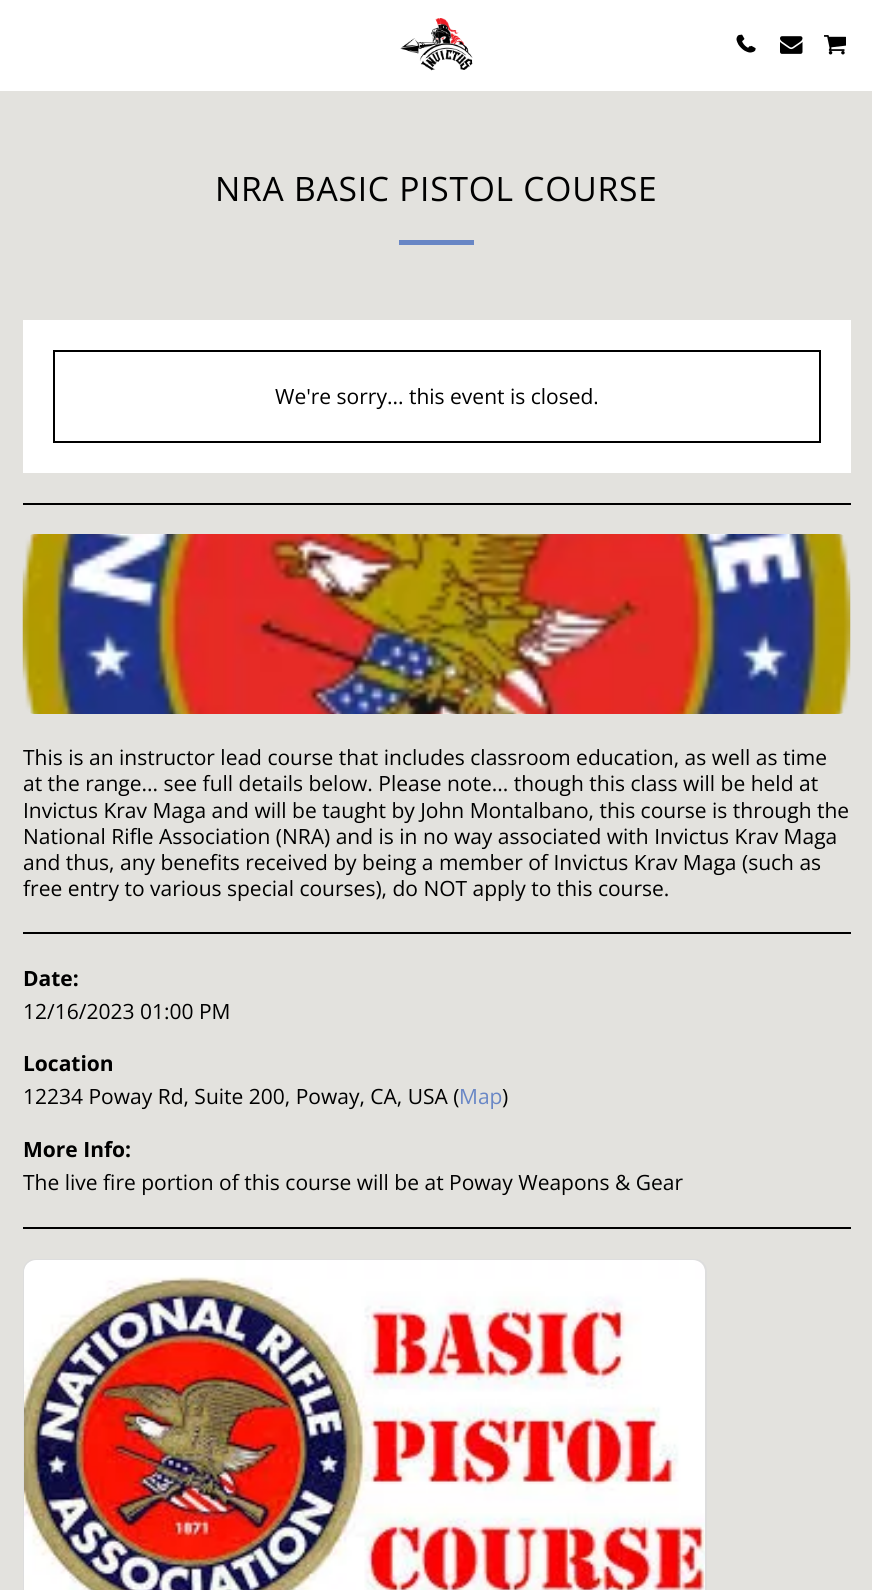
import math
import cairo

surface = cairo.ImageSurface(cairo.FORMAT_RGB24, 872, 1590)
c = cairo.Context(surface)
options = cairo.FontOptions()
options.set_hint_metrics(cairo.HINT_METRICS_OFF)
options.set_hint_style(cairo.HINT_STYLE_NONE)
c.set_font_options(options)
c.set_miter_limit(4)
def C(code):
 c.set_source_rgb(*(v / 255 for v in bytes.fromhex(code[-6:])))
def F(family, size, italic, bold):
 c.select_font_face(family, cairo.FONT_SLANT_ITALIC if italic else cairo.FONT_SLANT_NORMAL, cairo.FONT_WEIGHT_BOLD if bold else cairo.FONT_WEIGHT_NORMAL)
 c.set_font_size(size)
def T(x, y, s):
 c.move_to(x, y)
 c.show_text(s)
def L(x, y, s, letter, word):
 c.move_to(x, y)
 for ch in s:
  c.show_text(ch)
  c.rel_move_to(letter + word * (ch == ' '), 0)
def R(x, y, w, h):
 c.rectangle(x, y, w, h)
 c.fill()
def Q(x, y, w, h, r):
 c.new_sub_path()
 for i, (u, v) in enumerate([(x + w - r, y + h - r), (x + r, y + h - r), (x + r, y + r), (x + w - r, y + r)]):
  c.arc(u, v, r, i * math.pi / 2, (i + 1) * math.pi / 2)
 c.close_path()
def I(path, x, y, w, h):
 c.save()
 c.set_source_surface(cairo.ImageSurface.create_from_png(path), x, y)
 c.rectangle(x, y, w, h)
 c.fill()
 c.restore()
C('e3e2de')
c.paint()
C('ffffff')
R(0,0,872,91)
I('1.png',400,18,73,53)
I('2.png',740,34,16,19)
I('3.png',736,34,18,19)
I('4.png',780,36,23,18)
I('5.png',824,35,22,20)
F('Open Sans',33.6,0,0)
C('000000')
L(215,201,'NRA BASIC PISTOL COURSE',.75,0)
C('6886c5')
R(399,240,75,5)
C('ffffff')
R(23,320,828,153)
c.rectangle(54,351,766,91)
C('000000')
c.stroke()
F('Open Sans',21,0,0)
T(275,404,'We\'re sorry... this event is closed.')
R(23,503,828,2)
I('6.png',22,534,829,180)
T(23,765,'This is an instructor lead course that includes classroom education, as well as time')
T(23,791,'at the range... see full details below. Please note... though this class will be held at')
T(23,818,'Invictus Krav Maga and will be taught by John Montalbano, this course is through the')
T(23,844,'National Rifle Association (NRA) and is in no way associated with Invictus Krav Maga')
T(23,870,'and thus, any benefits received by being a member of Invictus Krav Maga (such as')
T(23,896,'free entry to various special courses), do NOT apply to this course.')
R(23,932,828,2)
F('Open Sans',21,0,1)
T(23,986,'Date:')
F('Open Sans',21,0,0)
T(23,1019,'12/16/2023 01:00 PM')
F('Open Sans',21,0,1)
T(23,1071,'Location')
F('Open Sans',21,0,0)
T(23,1104,'12234 Poway Rd, Suite 200, Poway, CA, USA (')
C('6886c5')
T(459,1104,'Map')
C('000000')
T(502,1104,')')
F('Open Sans',21,0,1)
T(23,1157,'More Info:')
F('Open Sans',21,0,0)
T(23,1190,'The live fire portion of this course will be at Poway Weapons & Gear')
R(23,1227,828,2)
Q(24,1260,682,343,11)
C('dddddd')
c.stroke()
I('7.png',24,1260,681,330)
surface.write_to_png('o.png')
